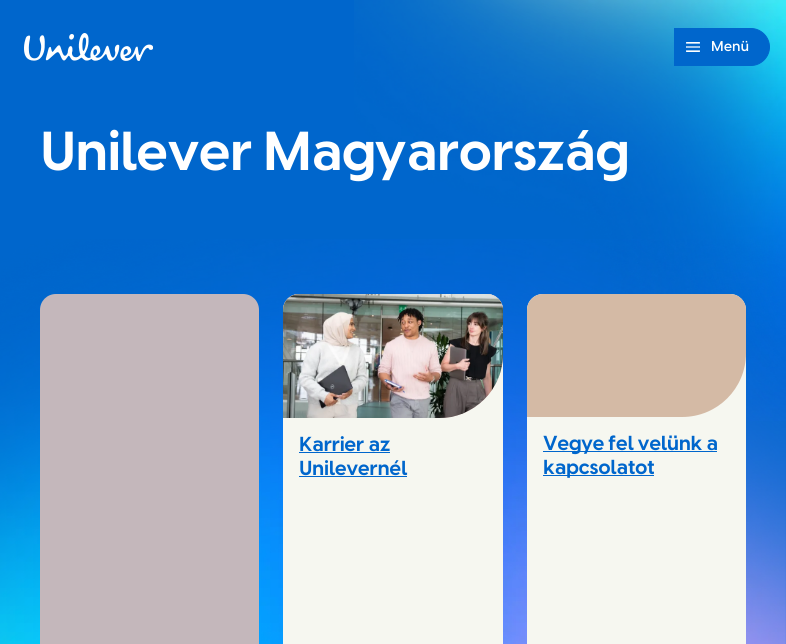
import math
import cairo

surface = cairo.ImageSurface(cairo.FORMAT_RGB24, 786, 644)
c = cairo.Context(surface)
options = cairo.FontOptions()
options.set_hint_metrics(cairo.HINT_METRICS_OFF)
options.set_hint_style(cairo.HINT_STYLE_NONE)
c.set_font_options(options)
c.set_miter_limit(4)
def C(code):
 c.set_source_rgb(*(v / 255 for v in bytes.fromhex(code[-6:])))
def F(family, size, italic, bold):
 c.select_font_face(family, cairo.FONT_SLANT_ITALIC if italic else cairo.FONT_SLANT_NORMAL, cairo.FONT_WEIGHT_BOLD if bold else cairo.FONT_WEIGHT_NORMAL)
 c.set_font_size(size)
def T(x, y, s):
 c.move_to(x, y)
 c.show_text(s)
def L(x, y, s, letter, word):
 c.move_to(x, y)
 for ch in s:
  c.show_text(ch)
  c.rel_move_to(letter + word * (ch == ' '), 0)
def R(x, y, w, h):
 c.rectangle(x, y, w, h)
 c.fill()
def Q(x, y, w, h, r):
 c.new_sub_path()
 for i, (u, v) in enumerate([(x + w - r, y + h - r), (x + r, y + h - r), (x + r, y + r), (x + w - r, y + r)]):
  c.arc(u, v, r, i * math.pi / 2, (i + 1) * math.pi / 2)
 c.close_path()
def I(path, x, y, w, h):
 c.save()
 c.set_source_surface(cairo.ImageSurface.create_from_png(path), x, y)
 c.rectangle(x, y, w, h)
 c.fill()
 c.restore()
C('0066cc')
c.paint()
I('1.png',354,0,432,421)
I('2.png',24,33,129,28)
C('0066cc')
c.new_path()
c.move_to(674.5,28.5)
c.line_to(751,28.5)
c.curve_to(761,28.5,769.5,37,769.5,47)
c.curve_to(769.5,57,761,65.5,751,65.5)
c.line_to(674.5,65.5)
c.close_path()
c.fill_preserve()
c.set_line_width(1)
c.stroke()
I('3.png',686,42,14,10)
F('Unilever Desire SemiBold',14,0,0)
C('ffffff')
T(711,51,'Menü')
F('Unilever Desire',54,0,1)
L(40,170,'Unilever Magyarország',-1.1,0)
I('5.png',0,239,786,405)
C('c4b7bb')
c.new_path()
c.move_to(56,294)
c.line_to(243,294)
c.curve_to(252,294,259,301,259,310)
c.line_to(259,644)
c.curve_to(259,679.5,230.5,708,195,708)
c.line_to(40,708)
c.line_to(40,310)
c.curve_to(40,301,47,294,56,294)
c.close_path()
c.fill()
C('f6f7f0')
Q(283,294,220,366,16)
c.fill()
C('d7bab9')
c.new_path()
c.move_to(299,294)
c.line_to(487,294)
c.curve_to(496,294,503,301,503,310)
c.line_to(503,354)
c.curve_to(503,389.5,474.5,418,439,418)
c.line_to(283,418)
c.line_to(283,310)
c.curve_to(283,301,290,294,299,294)
c.close_path()
c.fill()
I('4.png',283,294,220,124)
F('Unilever Desire',20,0,1)
C('0066cc')
L(299,451,'Karrier az',-.4,0)
R(299,452,91,1)
L(299,475,'Unilevernél',-.4,0)
R(299,476,108,1)
C('f6f7f0')
Q(527,294,219,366,16)
c.fill()
C('d4baa5')
c.new_path()
c.move_to(543,294)
c.line_to(730,294)
c.curve_to(739,294,746,301,746,310)
c.line_to(746,353)
c.curve_to(746,388.5,717.5,417,682,417)
c.line_to(527,417)
c.line_to(527,310)
c.curve_to(527,301,534,294,543,294)
c.close_path()
c.fill()
C('0066cc')
R(543,451,174,1)
L(543,450,'Vegye fel velünk a',-.4,0)
R(543,475,111,1)
L(543,474,'kapcsolatot',-.4,0)
surface.write_to_png('o.png')
